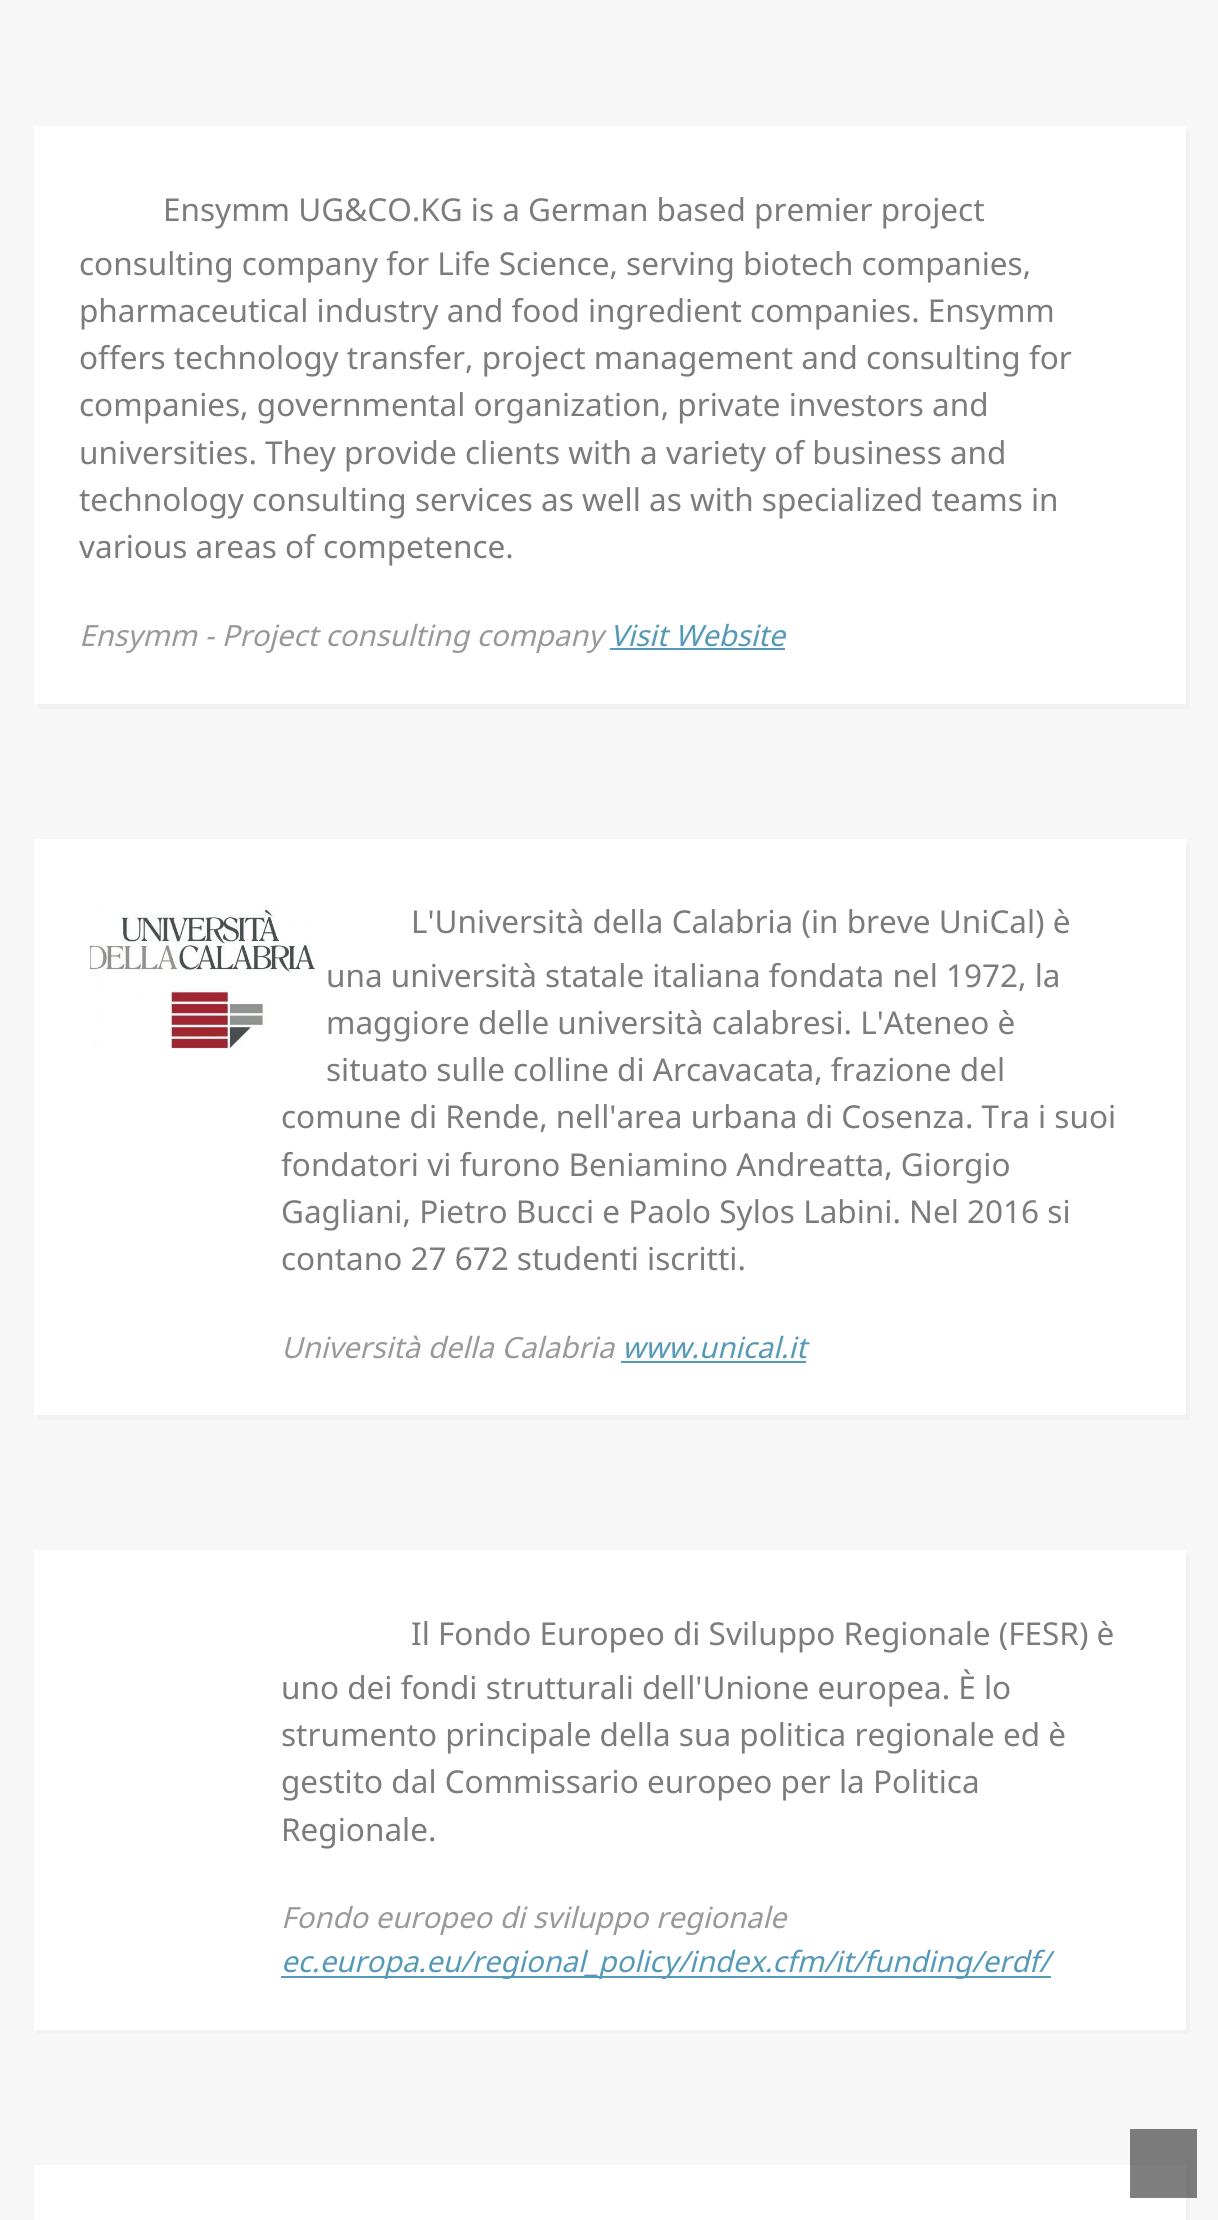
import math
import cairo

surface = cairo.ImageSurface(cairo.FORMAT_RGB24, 1218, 2220)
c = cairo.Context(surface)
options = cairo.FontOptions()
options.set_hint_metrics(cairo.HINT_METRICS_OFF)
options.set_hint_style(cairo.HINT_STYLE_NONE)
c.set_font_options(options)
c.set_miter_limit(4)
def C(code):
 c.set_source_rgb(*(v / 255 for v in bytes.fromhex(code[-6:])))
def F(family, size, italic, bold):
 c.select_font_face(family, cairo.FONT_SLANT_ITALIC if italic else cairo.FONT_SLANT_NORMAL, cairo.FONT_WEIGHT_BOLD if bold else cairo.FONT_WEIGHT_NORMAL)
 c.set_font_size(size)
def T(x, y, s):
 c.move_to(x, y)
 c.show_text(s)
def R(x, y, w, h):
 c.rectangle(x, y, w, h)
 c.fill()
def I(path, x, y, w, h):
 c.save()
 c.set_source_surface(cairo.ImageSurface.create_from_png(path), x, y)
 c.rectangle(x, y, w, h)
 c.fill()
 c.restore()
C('f7f7f7')
c.paint()
C('f2f2f2')
c.new_path()
c.move_to(38,704)
c.line_to(38,709)
c.line_to(1190,709)
c.line_to(1190,131)
c.line_to(1186,131)
c.line_to(1186,704)
c.close_path()
c.fill()
C('ffffff')
R(34,126,1152,578)
F('Noto Sans',31.5,0,0)
C('7c7c7c')
T(163,221,'Ensymm UG&CO.KG is a German based premier project')
T(79,275,'consulting company for Life Science, serving biotech companies,')
T(79,322,'pharmaceutical industry and food ingredient companies. Ensymm')
T(79,369,'offers technology transfer, project management and consulting for')
T(79,416,'companies, governmental organization, private investors and')
T(79,464,'universities. They provide clients with a variety of business and')
T(79,511,'technology consulting services as well as with specialized teams in')
T(79,558,'various areas of competence.')
F('Noto Sans',29.25,1,0)
C('999999')
T(79,646,'Ensymm - Project consulting company')
C('549ab8')
T(610,646,'Visit Website')
R(610,648,175,2)
C('f2f2f2')
c.new_path()
c.move_to(38,1415)
c.line_to(38,1420)
c.line_to(1190,1420)
c.line_to(1190,844)
c.line_to(1186,844)
c.line_to(1186,1415)
c.close_path()
c.fill()
C('ffffff')
R(34,839,1152,576)
I('1.png',90,909,225,140)
F('Noto Sans',31.5,0,0)
C('7c7c7c')
T(411,933,'L\'Università della Calabria (in breve UniCal) è')
T(326,987,'una università statale italiana fondata nel 1972, la')
T(326,1034,'maggiore delle università calabresi. L\'Ateneo è')
T(326,1081,'situato sulle colline di Arcavacata, frazione del')
T(281,1128,'comune di Rende, nell\'area urbana di Cosenza. Tra i suoi')
T(281,1176,'fondatori vi furono Beniamino Andreatta, Giorgio')
T(281,1223,'Gagliani, Pietro Bucci e Paolo Sylos Labini. Nel 2016 si')
T(281,1270,'contano 27 672 studenti iscritti.')
F('Noto Sans',29.25,1,0)
C('999999')
T(281,1358,'Università della Calabria')
C('549ab8')
T(622,1358,'www.unical.it')
R(621,1361,185,2)
C('f2f2f2')
c.new_path()
c.move_to(38,2030)
c.line_to(38,2034)
c.line_to(1190,2034)
c.line_to(1190,1555)
c.line_to(1186,1555)
c.line_to(1186,2030)
c.close_path()
c.fill()
C('ffffff')
R(34,1550,1152,480)
F('Noto Sans',31.5,0,0)
C('7c7c7c')
T(411,1645,'Il Fondo Europeo di Sviluppo Regionale (FESR) è')
T(281,1699,'uno dei fondi strutturali dell\'Unione europea. È lo')
T(281,1746,'strumento principale della sua politica regionale ed è')
T(281,1793,'gestito dal Commissario europeo per la Politica')
T(281,1841,'Regionale.')
F('Noto Sans',29.25,1,0)
C('999999')
T(281,1928,'Fondo europeo di sviluppo regionale')
C('549ab8')
R(281,1976,770,2)
T(281,1972,'ec.europa.eu/regional_policy/index.cfm/it/funding/erdf/')
C('f2f2f2')
c.new_path()
c.move_to(38,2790)
c.line_to(38,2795)
c.line_to(1190,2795)
c.line_to(1190,2169)
c.line_to(1186,2169)
c.line_to(1186,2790)
c.close_path()
c.fill()
C('ffffff')
R(34,2165,1152,55)
c.set_source_rgba(0,0,0,0.5)
R(1130,2129,67,69)
surface.write_to_png('o.png')
